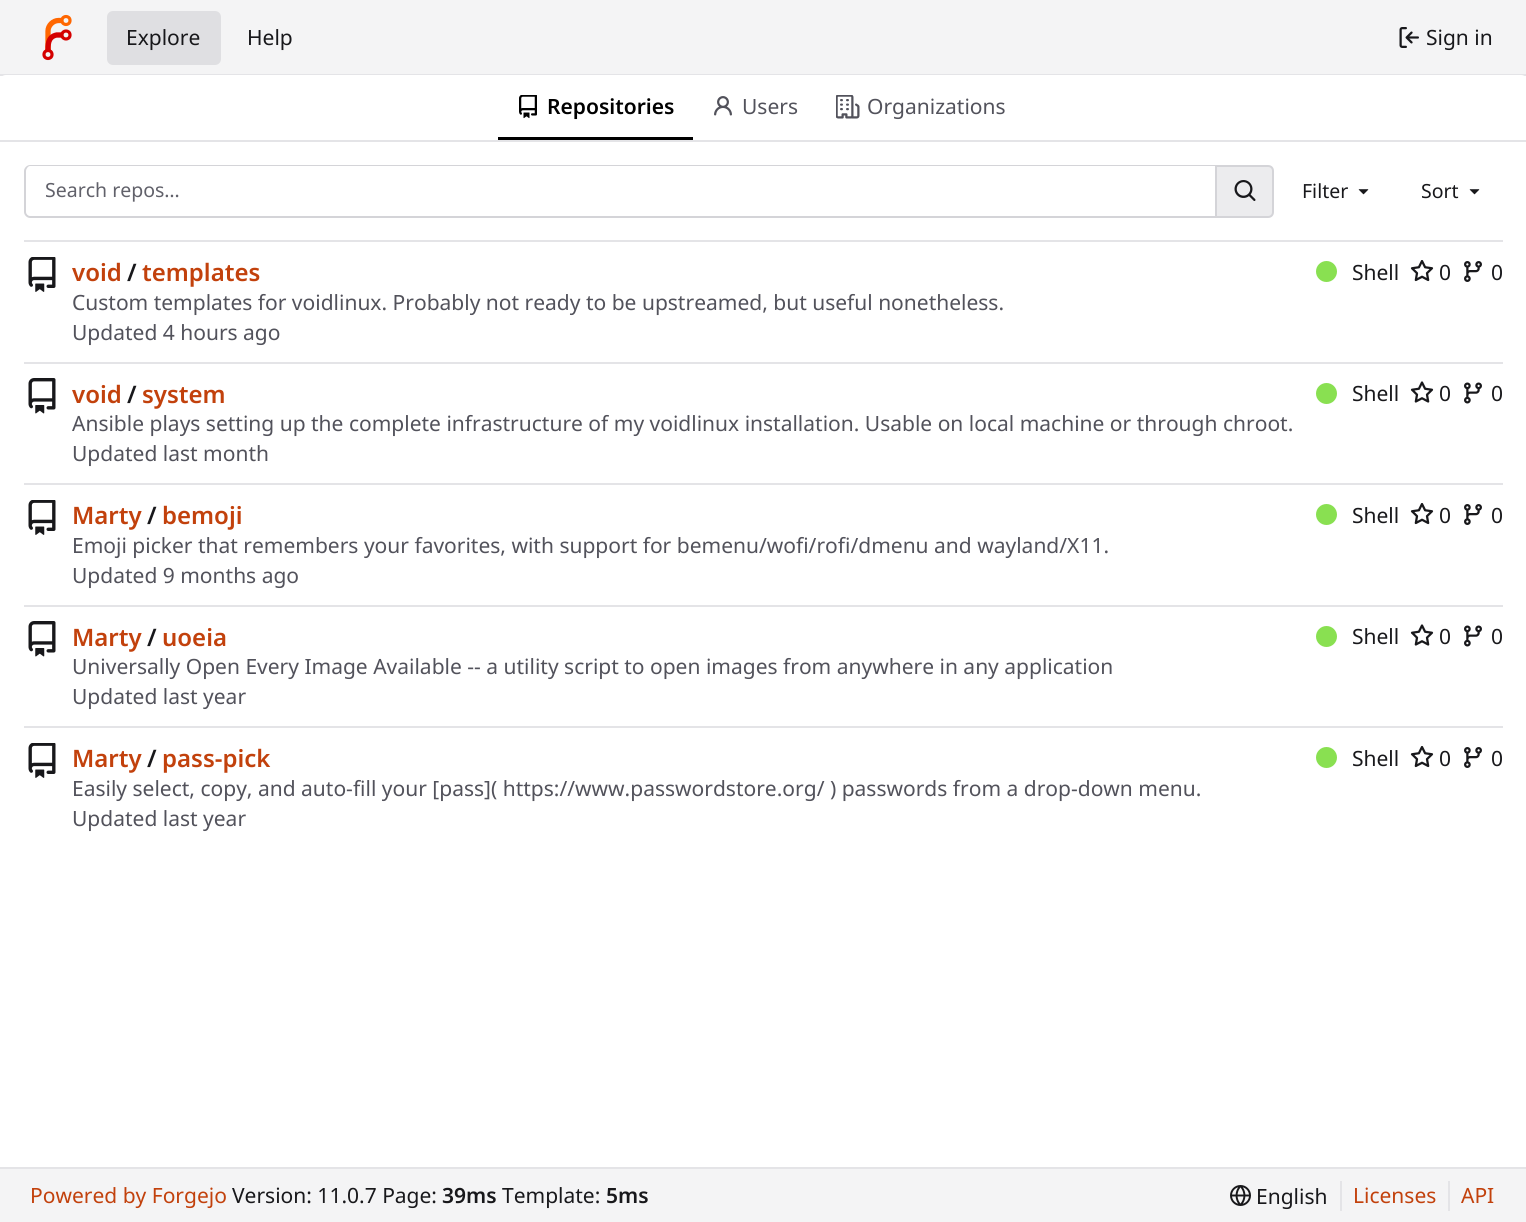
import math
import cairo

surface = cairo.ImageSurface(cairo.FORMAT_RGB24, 1526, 1222)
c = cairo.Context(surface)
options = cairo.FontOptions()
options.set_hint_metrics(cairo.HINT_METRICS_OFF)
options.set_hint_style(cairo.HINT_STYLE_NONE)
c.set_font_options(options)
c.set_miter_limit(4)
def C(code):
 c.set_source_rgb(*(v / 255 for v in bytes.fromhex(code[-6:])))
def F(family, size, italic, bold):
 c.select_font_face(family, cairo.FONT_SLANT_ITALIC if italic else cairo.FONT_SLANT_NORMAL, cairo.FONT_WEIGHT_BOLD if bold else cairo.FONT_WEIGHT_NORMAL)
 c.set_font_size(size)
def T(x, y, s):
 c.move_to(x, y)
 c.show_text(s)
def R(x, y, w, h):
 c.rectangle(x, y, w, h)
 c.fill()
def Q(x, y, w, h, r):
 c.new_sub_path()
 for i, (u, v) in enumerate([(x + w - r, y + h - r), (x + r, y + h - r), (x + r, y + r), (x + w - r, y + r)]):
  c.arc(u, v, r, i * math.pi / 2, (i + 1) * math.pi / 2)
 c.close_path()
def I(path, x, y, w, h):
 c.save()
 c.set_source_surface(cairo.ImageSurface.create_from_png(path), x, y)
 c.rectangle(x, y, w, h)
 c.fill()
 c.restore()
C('ffffff')
c.paint()
C('f4f4f5')
R(0,0,1526,74)
C('e4e4e7')
R(0,74,1526,2)
c.new_path()
c.move_to(48,52)
c.line_to(48,31)
c.curve_to(48,25.5,53,20.5,58.5,20.5)
c.line_to(63,20.5)
C('ff6600')
c.set_line_width(5.3)
c.stroke()
c.new_path()
c.move_to(48,52)
c.curve_to(48,45,47.5,37,56.5,35)
c.line_to(63,35)
C('d40000')
c.stroke()
c.arc(66,20.5,4,0,2 * math.pi)
C('ff6600')
c.set_line_width(3.2)
c.stroke()
c.arc(66,35,4,0,2 * math.pi)
C('d40000')
c.stroke()
c.arc(48,54.5,4,0,2 * math.pi)
c.stroke()
C('dfdfe2')
Q(107,11,114,54,6)
c.fill()
F('Noto Sans',21,0,0)
C('18181b')
T(126,45,'Explore')
T(247,45,'Help')
I('1.png',1399,27,20,21)
T(1426,45,'Sign in')
C('ffffff')
c.new_path()
c.move_to(6,75)
c.line_to(1521,75)
c.curve_to(1524.5,75,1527,77.5,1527,81)
c.line_to(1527,141)
c.line_to(0,141)
c.line_to(0,81)
c.curve_to(0,77.5,2.5,75,6,75)
c.close_path()
c.fill()
C('e4e4e7')
R(0,140,1526,2)
C('000000')
R(498,137,195,3)
I('2.png',519,95,18,24)
F('Noto Sans SemiBold',21,0,0)
T(547,114,'Repositories')
I('3.png',714,96,18,20)
F('Noto Sans',21,0,0)
C('52525b')
T(742,114,'Users')
I('4.png',836,95,24,24)
T(867,114,'Organizations')
C('d4d4d8')
c.set_fill_rule(cairo.FILL_RULE_EVEN_ODD)
c.new_path()
c.move_to(30,165)
c.line_to(1215,165)
c.line_to(1215,218)
c.line_to(30,218)
c.curve_to(27,218,24,215,24,212)
c.line_to(24,171)
c.curve_to(24,168,27,165,30,165)
c.close_path()
c.move_to(30,166)
c.line_to(1215,166)
c.line_to(1215,216)
c.line_to(30,216)
c.curve_to(28,216,26,214,26,212)
c.line_to(26,171)
c.curve_to(26,169,28,166,30,166)
c.close_path()
c.fill()
F('Noto Sans',19.5,0,0)
C('61616a')
T(45,197,'Search repos…')
C('ececee')
c.new_path()
c.move_to(1216,166)
c.line_to(1268,166)
c.curve_to(1271,166,1273,168,1273,171)
c.line_to(1273,212)
c.curve_to(1273,215,1271,217,1268,217)
c.line_to(1216,217)
c.close_path()
c.fill_preserve()
C('d4d4d8')
c.set_line_width(2)
c.stroke()
I('5.png',1234,180,22,21)
C('18181b')
T(1302,198,'Filter')
I('6.png',1358,189,11,6)
T(1421,198,'Sort')
I('6.png',1469,189,11,6)
C('e4e4e7')
R(24,240,1479,2)
I('7.png',28,257,28,35)
F('Noto Sans SemiBold',24,0,0)
C('c2410c')
T(72,281,'void')
C('18181b')
T(127,281,'/')
C('c2410c')
T(142,281,'templates')
C('89e051')
c.new_path()
c.arc(1326.5,271.5,10.5,0,2 * math.pi)
c.fill()
F('Noto Sans',21,0,0)
C('18181b')
T(1352,280,'Shell')
I('8.png',1410,260,24,22)
T(1439,280,'0')
I('9.png',1464,261,18,21)
T(1491,280,'0')
C('52525b')
T(72,310,'Custom templates for voidlinux. Probably not ready to be upstreamed, but useful nonetheless.')
T(72,340,'Updated 4 hours ago')
C('e4e4e7')
R(24,362,1479,2)
I('10.png',28,378,28,36)
F('Noto Sans SemiBold',24,0,0)
C('c2410c')
T(72,403,'void')
C('18181b')
T(127,403,'/')
C('c2410c')
T(142,403,'system')
C('89e051')
c.new_path()
c.arc(1326.5,393.5,10.5,0,2 * math.pi)
c.fill()
F('Noto Sans',21,0,0)
C('18181b')
T(1352,401,'Shell')
I('11.png',1410,381,24,22)
T(1439,401,'0')
I('12.png',1464,382,18,22)
T(1491,401,'0')
C('52525b')
T(72,431,'Ansible plays setting up the complete infrastructure of my voidlinux installation. Usable on local machine or through chroot.')
T(72,461,'Updated last month')
C('e4e4e7')
R(24,483,1479,2)
I('7.png',28,500,28,35)
F('Noto Sans SemiBold',24,0,0)
C('c2410c')
T(72,524,'Marty')
C('18181b')
T(147,524,'/')
C('c2410c')
T(162,524,'bemoji')
C('89e051')
c.new_path()
c.arc(1326.5,514.5,10.5,0,2 * math.pi)
c.fill()
F('Noto Sans',21,0,0)
C('18181b')
T(1352,523,'Shell')
I('8.png',1410,503,24,22)
T(1439,523,'0')
I('9.png',1464,504,18,21)
T(1491,523,'0')
C('52525b')
T(72,553,'Emoji picker that remembers your favorites, with support for bemenu/wofi/rofi/dmenu and wayland/X11.')
T(72,583,'Updated 9 months ago')
C('e4e4e7')
R(24,605,1479,2)
I('10.png',28,621,28,36)
F('Noto Sans SemiBold',24,0,0)
C('c2410c')
T(72,646,'Marty')
C('18181b')
T(147,646,'/')
C('c2410c')
T(162,646,'uoeia')
C('89e051')
c.new_path()
c.arc(1326.5,636.5,10.5,0,2 * math.pi)
c.fill()
F('Noto Sans',21,0,0)
C('18181b')
T(1352,644,'Shell')
I('11.png',1410,624,24,22)
T(1439,644,'0')
I('12.png',1464,625,18,22)
T(1491,644,'0')
C('52525b')
T(72,674,'Universally Open Every Image Available -- a utility script to open images from anywhere in any application')
T(72,704,'Updated last year')
C('e4e4e7')
R(24,726,1479,2)
I('7.png',28,743,28,35)
F('Noto Sans SemiBold',24,0,0)
C('c2410c')
T(72,767,'Marty')
C('18181b')
T(147,767,'/')
C('c2410c')
T(162,767,'pass-pick')
C('89e051')
c.new_path()
c.arc(1326.5,757.5,10.5,0,2 * math.pi)
c.fill()
F('Noto Sans',21,0,0)
C('18181b')
T(1352,766,'Shell')
I('8.png',1410,746,24,22)
T(1439,766,'0')
I('9.png',1464,747,18,21)
T(1491,766,'0')
C('52525b')
T(72,796,'Easily select, copy, and auto-fill your [pass]( https://www.passwordstore.org/ ) passwords from a drop-down menu.')
T(72,826,'Updated last year')
C('f4f4f5')
R(0,1169,1526,53)
C('e4e4e7')
R(0,1167,1526,2)
C('c2410c')
T(30,1203,'Powered by Forgejo')
C('18181b')
T(232,1203,'Version: 11.0.7 Page:')
F('Noto Sans SemiBold',21,0,0)
T(442,1203,'39ms')
F('Noto Sans',21,0,0)
T(502,1203,'Template:')
F('Noto Sans SemiBold',21,0,0)
T(606,1203,'5ms')
I('13.png',1230,1185,21,21)
F('Noto Sans',21,0,0)
T(1256,1204,'English')
C('e4e4e7')
R(1340,1181,2,30)
C('c2410c')
T(1353,1203,'Licenses')
C('e4e4e7')
R(1448,1181,2,30)
C('c2410c')
T(1461,1203,'API')
surface.write_to_png('o.png')
